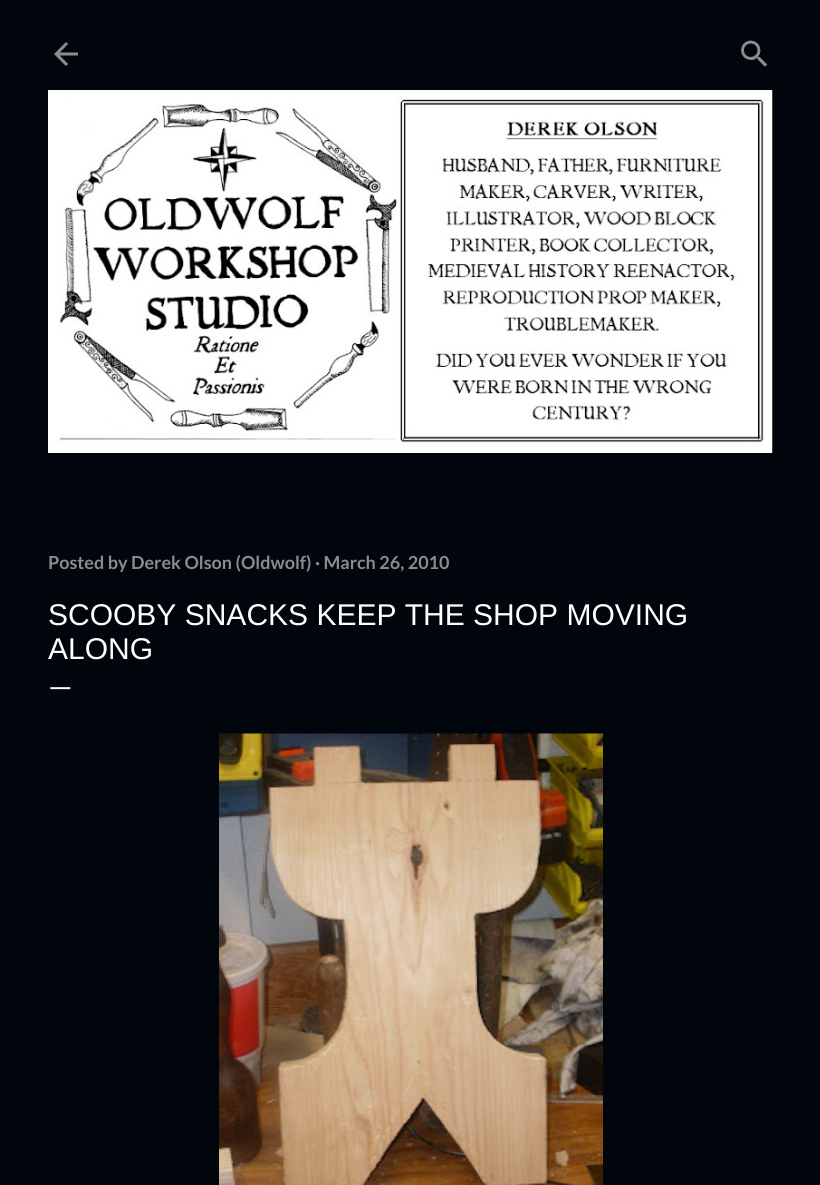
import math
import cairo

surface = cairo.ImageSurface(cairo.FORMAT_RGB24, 820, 1185)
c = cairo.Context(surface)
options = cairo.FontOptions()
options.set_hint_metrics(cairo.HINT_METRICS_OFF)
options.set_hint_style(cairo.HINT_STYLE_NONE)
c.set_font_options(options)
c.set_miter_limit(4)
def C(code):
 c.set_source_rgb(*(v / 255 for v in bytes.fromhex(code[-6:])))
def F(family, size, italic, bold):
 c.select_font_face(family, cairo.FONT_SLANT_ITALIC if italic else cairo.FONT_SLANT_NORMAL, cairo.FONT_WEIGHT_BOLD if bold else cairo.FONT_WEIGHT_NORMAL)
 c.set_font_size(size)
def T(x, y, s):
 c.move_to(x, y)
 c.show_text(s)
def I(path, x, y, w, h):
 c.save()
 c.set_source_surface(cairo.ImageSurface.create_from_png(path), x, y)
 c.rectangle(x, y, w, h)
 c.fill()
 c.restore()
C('01050c')
c.paint()
I('1.png',54,42,24,24)
I('2.png',741,40,27,27)
I('3.png',48,90,725,363)
F('Lato',18,0,1)
C('8a8c8f')
T(48,569,'Posted by Derek Olson (Oldwolf) · March 26, 2010')
F('Liberation Sans',30,0,0)
C('ffffff')
T(48,625,'SCOOBY SNACKS KEEP THE SHOP MOVING')
T(48,659,'ALONG')
F('Lato',30,0,0)
T(48,697,'—')
I('4.png',219,733,384,452)
surface.write_to_png('o.png')
